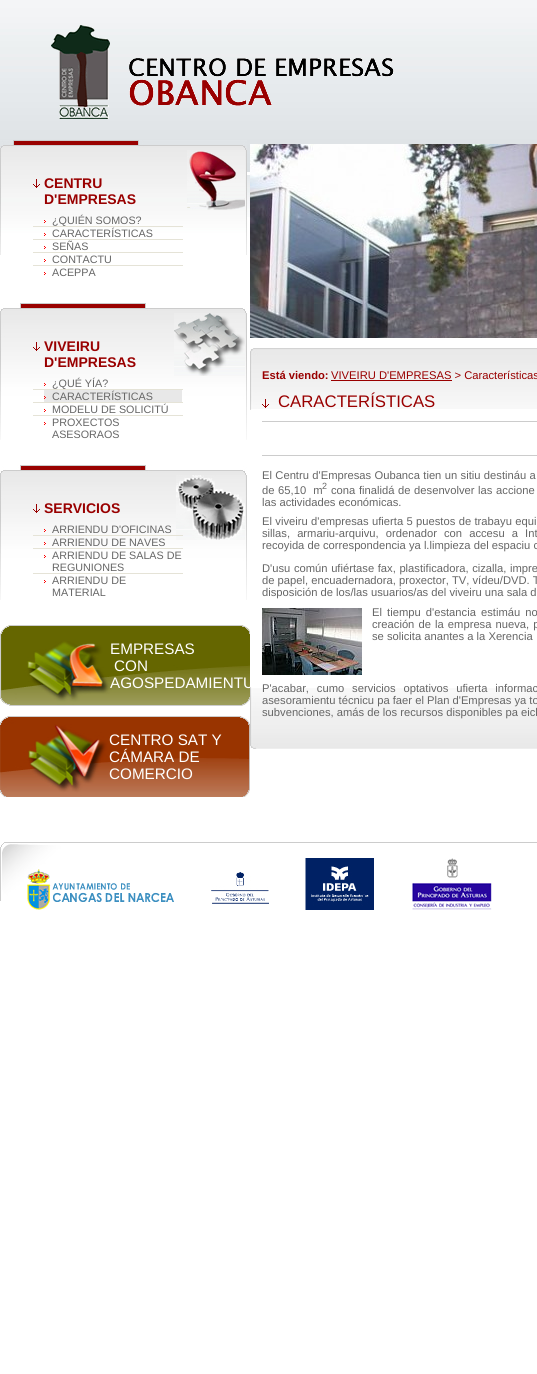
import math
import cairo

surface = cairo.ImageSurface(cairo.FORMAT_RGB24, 537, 1374)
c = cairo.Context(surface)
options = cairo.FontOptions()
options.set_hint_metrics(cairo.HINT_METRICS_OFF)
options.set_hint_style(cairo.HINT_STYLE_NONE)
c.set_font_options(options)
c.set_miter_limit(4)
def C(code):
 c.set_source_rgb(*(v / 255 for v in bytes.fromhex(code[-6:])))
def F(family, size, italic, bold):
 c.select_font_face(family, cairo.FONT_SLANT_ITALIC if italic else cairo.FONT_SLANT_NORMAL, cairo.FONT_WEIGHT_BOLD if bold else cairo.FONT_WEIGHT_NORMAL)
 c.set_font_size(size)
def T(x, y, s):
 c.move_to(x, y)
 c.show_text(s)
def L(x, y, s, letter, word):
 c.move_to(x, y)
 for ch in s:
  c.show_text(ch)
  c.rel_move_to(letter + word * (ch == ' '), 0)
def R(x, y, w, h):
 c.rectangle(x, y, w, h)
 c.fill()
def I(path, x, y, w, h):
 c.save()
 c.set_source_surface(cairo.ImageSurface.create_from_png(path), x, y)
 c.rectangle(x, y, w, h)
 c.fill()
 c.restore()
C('ffffff')
c.paint()
I('1.png',0,0,537,217)
I('2.png',51,25,343,94)
I('3.png',0,140,247,115)
I('4.png',33,179,7,9)
F('Liberation Sans',14,0,1)
C('990000')
T(44,188,'CENTRU')
T(44,204,'D\'EMPRESAS')
I('5.png',187,150,58,60)
I('6.png',44,220,2,3)
F('Liberation Sans',10.75,0,0)
C('666666')
T(52,224,'¿QUIÉN SOMOS?')
C('e5e3d7')
R(33,226,150,1)
I('7.png',44,233,2,3)
C('666666')
T(52,237,'CARACTERÍSTICAS')
C('e5e3d7')
R(33,239,150,1)
I('7.png',44,246,2,3)
C('666666')
T(52,250,'SEÑAS')
C('e5e3d7')
R(33,252,150,1)
I('7.png',44,259,2,3)
C('666666')
T(52,263,'CONTACTU')
C('e5e3d7')
R(33,265,150,1)
I('7.png',44,272,2,3)
C('666666')
T(52,276,'ACEPPA')
I('8.png',0,303,247,137)
I('4.png',33,342,7,9)
F('Liberation Sans',14,0,1)
C('990000')
T(44,351,'VIVEIRU')
T(44,367,'D\'EMPRESAS')
I('9.png',174,313,71,63)
I('10.png',44,383,2,3)
F('Liberation Sans',10.75,0,0)
C('666666')
T(52,387,'¿QUÉ YÍA?')
C('e5e3d7')
R(33,389,150,1)
C('e8e8e8')
R(44,390,138,12)
I('11.png',44,396,2,3)
C('666666')
T(52,400,'CARACTERÍSTICAS')
C('e5e3d7')
R(33,402,150,1)
I('7.png',44,409,2,3)
C('666666')
T(52,413,'MODELU DE SOLICITÚ')
C('e5e3d7')
R(33,415,150,1)
I('7.png',44,422,2,3)
C('666666')
T(52,426,'PROXECTOS')
T(52,438,'ASESORAOS')
I('12.png',0,465,247,135)
I('4.png',33,504,7,9)
F('Liberation Sans',14,0,1)
C('990000')
T(44,513,'SERVICIOS')
I('13.png',176,475,69,65)
I('14.png',44,529,2,3)
F('Liberation Sans',10.75,0,0)
C('666666')
T(52,533,'ARRIENDU D\'OFICINAS')
C('e5e3d7')
R(33,535,150,1)
I('15.png',44,542,2,3)
C('666666')
T(52,546,'ARRIENDU DE NAVES')
C('e5e3d7')
R(33,548,150,1)
I('16.png',44,555,2,3)
C('666666')
T(52,559,'ARRIENDU DE SALAS DE')
T(52,571,'REGUNIONES')
C('e5e3d7')
R(33,573,150,1)
I('7.png',44,580,2,3)
C('666666')
T(52,584,'ARRIENDU DE')
T(52,596,'MATERIAL')
I('17.png',0,625,250,81)
F('Liberation Sans',15.25,0,0)
C('ffffff')
T(110,654,'EMPRESAS')
T(114,671,'CON')
c.save()
c.rectangle(0,625,250,81)
c.clip()
T(110,688,'AGOSPEDAMIENTU')
c.restore()
I('18.png',0,716,250,81)
T(109,745,'CENTRO SAT Y')
T(109,762,'CÁMARA DE')
T(109,779,'COMERCIO')
I('19.png',250,687,287,62)
I('20.png',250,144,287,194)
I('21.png',250,348,287,62)
F('Liberation Sans',11.2,0,1)
C('990000')
T(262,379,'Está viendo:')
F('Liberation Sans',11.2,0,0)
T(331,379,'VIVEIRU D\'EMPRESAS > Características')
R(331,380,121,1)
I('22.png',262,399,7,9)
C('cccccc')
R(262,421,275,1)
F('Liberation Sans',16.75,0,0)
C('990000')
T(278,407,'CARACTERÍSTICAS')
C('cccccc')
R(262,455,275,1)
F('Liberation Sans',11.2,0,0)
C('666666')
L(262,479,'El Centru d\'Empresas Oubanca tien un sitiu destináu a',0,.25)
L(262,494,'de 65,10  m',0,.5)
F('Liberation Sans',9,0,0)
T(322,489,'2')
F('Liberation Sans',11.2,0,0)
L(331,494,'cona finalidá de desenvolver las accione',0,.5)
T(262,506,'las actividades económicas.')
L(262,525,'El viveiru d\'empresas ufierta 5 puestos de trabayu equi',0,.25)
L(262,537,'sillas, armariu-arquivu, ordenador con accesu a Int',0,4)
T(262,549,'recoyida de correspondencia ya l.limpieza del espaciu c')
L(262,572,'D\'usu común ufiértase fax, plastificadora, cizalla, impre',0,.5)
T(262,584,'de papel, encuadernadora, proxector, TV, vídeu/DVD. T')
T(262,596,'disposición de los/las usuarios/as del viveiru una sala d')
I('23.png',262,608,100,67)
L(372,616,'El tiempu d\'estancia estimáu no',0,2)
L(372,628,'creación de la empresa nueva, p',0,1)
T(372,640,'se solicita anantes a la Xerencia')
L(262,692,'P\'acabar, cumo servicios optativos ufierta informac',0,4.75)
T(262,704,'asesoramientu técnicu pa faer el Plan d\'Empresas ya to')
T(262,716,'subvenciones, amás de los recursos disponibles pa eich')
I('24.png',0,842,537,59)
I('25.png',27,869,147,41)
I('26.png',211,872,58,32)
I('27.png',305,858,69,52)
I('28.png',412,858,80,52)
surface.write_to_png('o.png')
